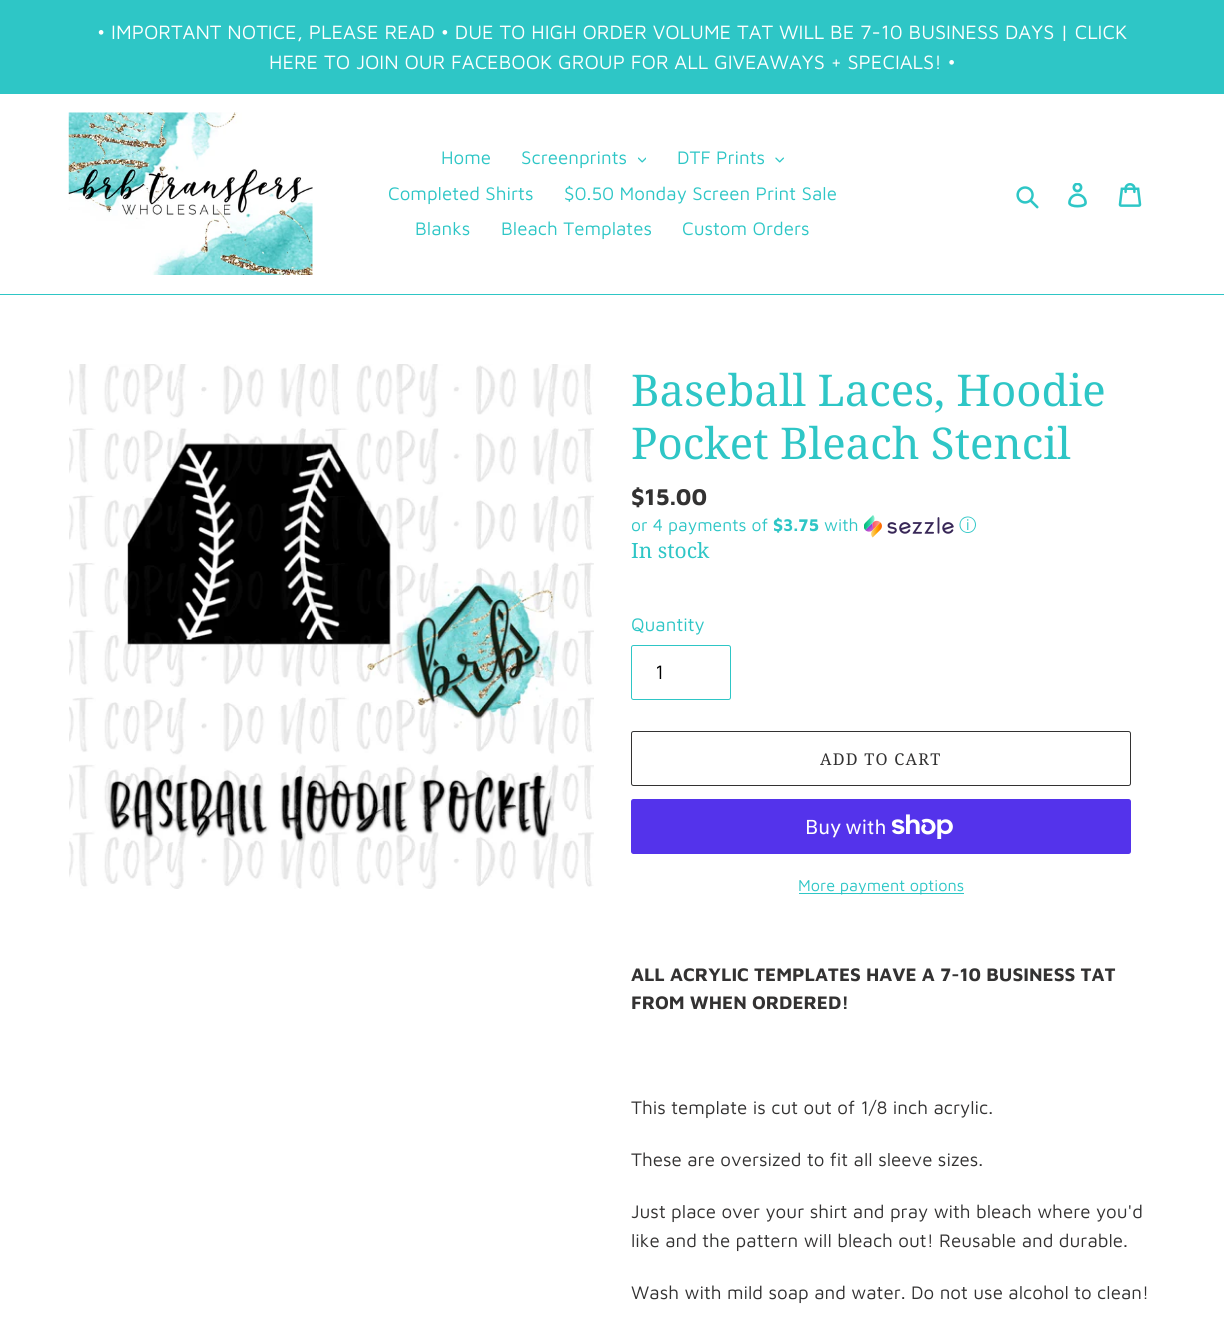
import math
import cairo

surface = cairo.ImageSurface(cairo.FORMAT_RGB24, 1224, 1341)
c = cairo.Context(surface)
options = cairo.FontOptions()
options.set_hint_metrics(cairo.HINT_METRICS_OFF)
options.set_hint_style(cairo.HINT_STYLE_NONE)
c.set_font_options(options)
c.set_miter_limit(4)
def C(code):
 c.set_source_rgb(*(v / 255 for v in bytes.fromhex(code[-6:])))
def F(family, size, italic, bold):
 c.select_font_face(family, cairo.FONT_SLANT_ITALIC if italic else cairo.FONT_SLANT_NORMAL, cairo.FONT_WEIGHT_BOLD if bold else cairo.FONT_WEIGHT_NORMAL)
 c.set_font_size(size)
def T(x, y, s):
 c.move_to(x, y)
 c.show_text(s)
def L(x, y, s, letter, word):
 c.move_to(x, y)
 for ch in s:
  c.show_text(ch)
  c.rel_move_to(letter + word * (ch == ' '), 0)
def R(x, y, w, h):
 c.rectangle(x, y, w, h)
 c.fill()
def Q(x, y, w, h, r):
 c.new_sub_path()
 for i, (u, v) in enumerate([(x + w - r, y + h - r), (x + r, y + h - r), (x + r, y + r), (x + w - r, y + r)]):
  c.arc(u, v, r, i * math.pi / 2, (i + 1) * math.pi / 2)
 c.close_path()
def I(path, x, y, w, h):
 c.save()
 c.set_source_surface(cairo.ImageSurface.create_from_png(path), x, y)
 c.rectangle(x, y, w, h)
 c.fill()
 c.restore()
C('ffffff')
c.paint()
C('2ec6c6')
R(0,0,1224,94)
F('Maven Pro',20,0,0)
C('ffffff')
T(97,39,'• IMPORTANT NOTICE, PLEASE READ • DUE TO HIGH ORDER VOLUME TAT WILL BE 7-10 BUSINESS DAYS | CLICK')
T(269,69,'HERE TO JOIN OUR FACEBOOK GROUP FOR ALL GIVEAWAYS + SPECIALS! •')
C('2ec6c6')
R(0,294,1224,1)
I('1.png',68,112,245,163)
F('Maven Pro',18.75,0,0)
T(441,164,'Home')
T(521,164,'Screenprints')
I('2.png',638,157,8,6)
T(677,164,'DTF Prints')
I('3.png',775,157,9,6)
T(388,200,'Completed Shirts')
T(564,200,'$0.50 Monday Screen Print Sale')
T(415,235,'Blanks')
T(501,235,'Bleach Templates')
T(682,235,'Custom Orders')
I('4.png',1016,186,23,23)
I('5.png',1068,183,19,25)
I('6.png',1118,183,24,24)
I('7.png',69,364,525,525)
F('Noto Serif',43.75,0,0)
T(631,406,'Baseball Laces, Hoodie')
T(631,459,'Pocket Bleach Stencil')
F('Maven Pro',23.5,0,1)
C('333232')
T(631,505,'$15.00')
F('Maven Pro',17.5,0,0)
C('2ec6c6')
T(631,531,'or 4 payments of')
F('Maven Pro',17.5,0,1)
T(773,531,'$3.75')
F('Maven Pro',17.5,0,0)
T(824,531,'with')
I('8.png',864,515,90,23)
F('WenQuanYi Zen Hei Medium',17.5,0,0)
T(959,531,'ⓘ')
F('Noto Serif',21,0,0)
T(631,558,'In stock')
F('Maven Pro',18.75,0,0)
T(631,631,'Quantity')
Q(631.5,645.5,99,54,2)
c.set_line_width(1)
c.stroke()
F('Maven Pro',20,0,0)
C('000000')
T(655,679,'1')
Q(631.5,731.5,499,54,2)
C('333232')
c.stroke()
F('Noto Serif',16.25,0,0)
L(820,765,'ADD TO CART',1.25,0)
C('5433eb')
Q(631,799,500,55,2.5)
c.fill()
F('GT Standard',20,0,0)
C('ffffff')
T(805,834,'Buy with')
I('9.png',891,814,62,25)
C('2ec6c6')
R(799,893,165,1)
F('Maven Pro',16.25,0,0)
T(798,891,'More payment options')
F('Maven Pro',18.75,0,1)
C('333232')
T(631,981,'ALL ACRYLIC TEMPLATES HAVE A 7-10 BUSINESS TAT')
T(631,1009,'FROM WHEN ORDERED!')
F('Maven Pro',18.75,0,0)
T(631,1114,'This template is cut out of 1/8 inch acrylic.')
T(631,1166,'These are oversized to fit all sleeve sizes.')
T(631,1218,'Just place over your shirt and pray with bleach where you\'d')
T(631,1247,'like and the pattern will bleach out! Reusable and durable.')
T(631,1299,'Wash with mild soap and water. Do not use alcohol to clean!')
surface.write_to_png('o.png')
